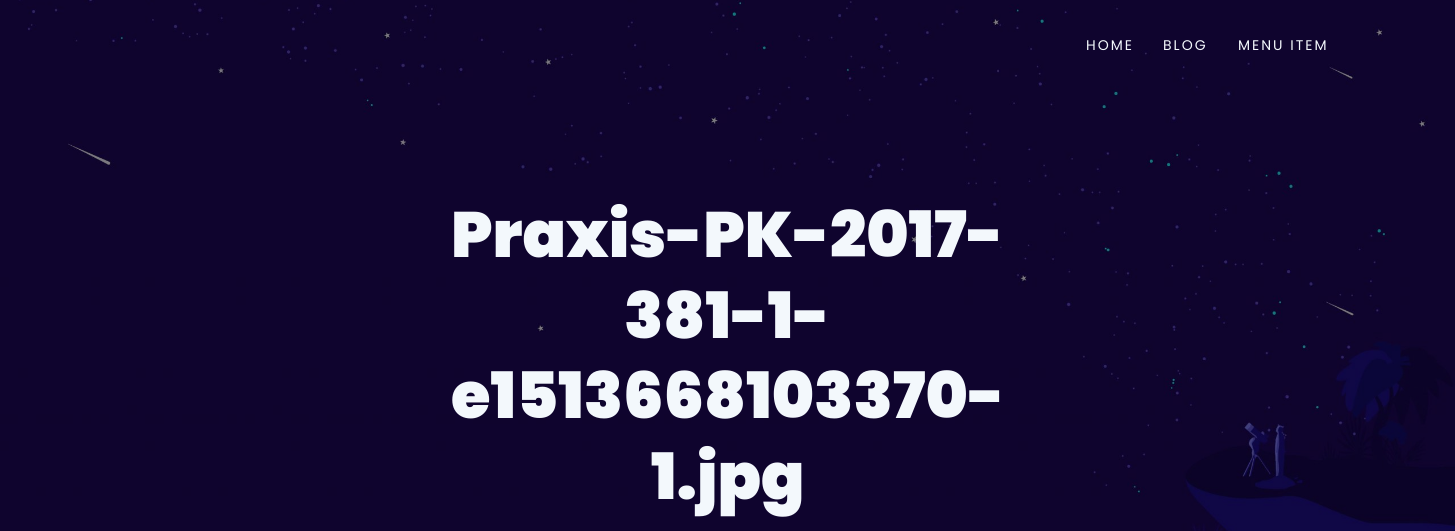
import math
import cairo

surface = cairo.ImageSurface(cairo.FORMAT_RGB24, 1455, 531)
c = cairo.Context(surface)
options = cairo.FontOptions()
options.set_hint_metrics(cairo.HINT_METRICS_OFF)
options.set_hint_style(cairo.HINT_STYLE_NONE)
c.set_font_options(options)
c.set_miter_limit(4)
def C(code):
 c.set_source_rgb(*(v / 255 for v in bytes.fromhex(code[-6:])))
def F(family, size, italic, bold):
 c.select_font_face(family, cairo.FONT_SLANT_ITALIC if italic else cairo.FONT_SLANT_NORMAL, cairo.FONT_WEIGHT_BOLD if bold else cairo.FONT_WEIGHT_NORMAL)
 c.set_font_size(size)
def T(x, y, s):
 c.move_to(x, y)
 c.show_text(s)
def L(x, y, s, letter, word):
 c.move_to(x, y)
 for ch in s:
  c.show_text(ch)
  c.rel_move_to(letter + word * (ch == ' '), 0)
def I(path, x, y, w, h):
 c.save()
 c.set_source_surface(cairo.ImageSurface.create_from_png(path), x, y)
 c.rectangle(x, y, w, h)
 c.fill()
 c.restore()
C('ffffff')
c.paint()
I('1.png',0,0,1455,531)
F('Poppins',14,0,0)
C('f3f8fc')
L(1086,50,'HOME',2,0)
L(1163,50,'BLOG',2,0)
L(1238,50,'MENU ITEM',2,0)
F('Poppins Black',64,0,0)
T(451,257,'Praxis-PK-2017-')
T(624,338,'381-1-')
T(451,418,'e1513668103370-')
T(651,499,'1.jpg')
surface.write_to_png('o.png')
